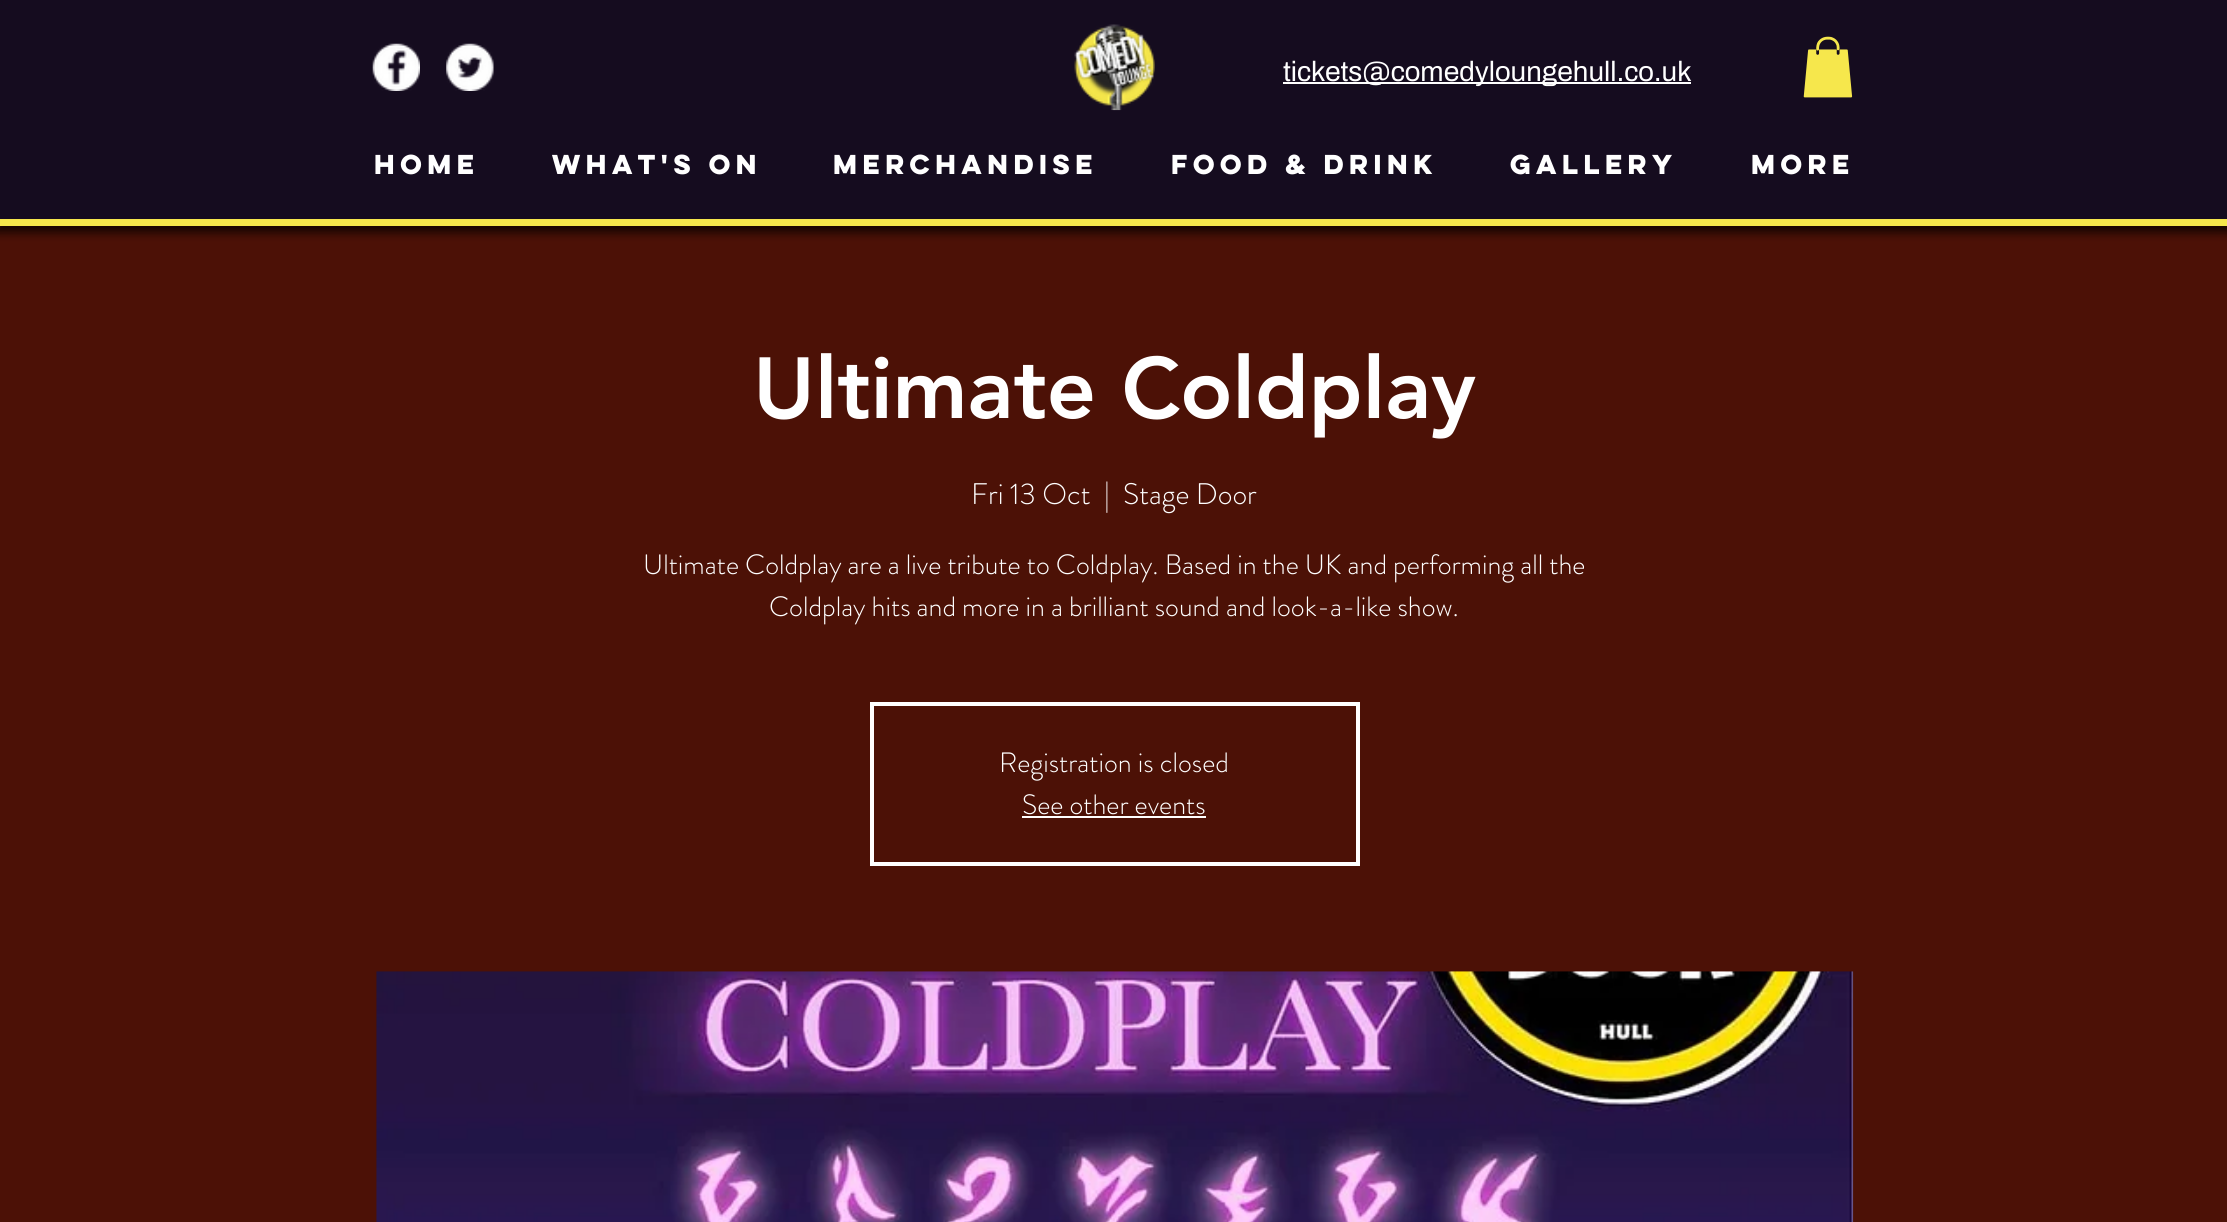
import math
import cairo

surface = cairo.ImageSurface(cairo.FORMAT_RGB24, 2227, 1222)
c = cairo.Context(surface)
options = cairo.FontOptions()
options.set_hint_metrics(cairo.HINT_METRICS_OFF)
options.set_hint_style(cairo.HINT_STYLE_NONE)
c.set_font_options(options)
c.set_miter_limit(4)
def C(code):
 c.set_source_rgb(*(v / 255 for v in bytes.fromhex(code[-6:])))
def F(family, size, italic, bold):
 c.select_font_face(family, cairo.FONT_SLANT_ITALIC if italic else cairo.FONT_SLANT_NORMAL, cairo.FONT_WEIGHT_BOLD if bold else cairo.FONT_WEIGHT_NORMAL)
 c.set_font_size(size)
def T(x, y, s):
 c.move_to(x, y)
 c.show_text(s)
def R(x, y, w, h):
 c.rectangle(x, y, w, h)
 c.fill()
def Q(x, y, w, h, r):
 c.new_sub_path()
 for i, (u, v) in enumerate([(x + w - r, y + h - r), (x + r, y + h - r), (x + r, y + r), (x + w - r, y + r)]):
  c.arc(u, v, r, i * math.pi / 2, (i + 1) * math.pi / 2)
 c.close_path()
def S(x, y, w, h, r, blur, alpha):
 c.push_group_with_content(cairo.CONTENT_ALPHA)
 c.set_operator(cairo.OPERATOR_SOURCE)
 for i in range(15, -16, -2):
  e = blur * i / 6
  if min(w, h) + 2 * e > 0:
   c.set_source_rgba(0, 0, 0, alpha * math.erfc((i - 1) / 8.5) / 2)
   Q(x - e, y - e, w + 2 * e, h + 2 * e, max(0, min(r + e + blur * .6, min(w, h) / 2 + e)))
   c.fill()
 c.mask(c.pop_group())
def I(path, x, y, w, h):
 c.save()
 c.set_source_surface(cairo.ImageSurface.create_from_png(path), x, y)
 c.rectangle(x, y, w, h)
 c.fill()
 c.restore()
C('221333')
c.paint()
C('4c1106')
R(0,226,2227,996)
c.save()
c.rectangle(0,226,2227,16)
c.clip()
C('000000')
S(-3,0,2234,233,0,4.5,.7)
c.restore()
c.set_source_rgba(0,0,0,0.39)
R(0,0,2227,219)
C('f6e74c')
R(0,219,2227,7)
I('1.png',372,43,48,48)
I('2.png',446,43,48,48)
I('3.png',1074,24,81,87)
C('ffffff')
R(1283,82,408,2)
F('Archivo',28,0,0)
T(1283,81,'tickets@comedyloungehull.co.uk')
I('4.png',1803,36,50,62)
F('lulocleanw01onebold',24.5,0,1)
T(374,174,'HOME')
T(552,174,'WHAT\'S ON')
T(833,174,'MERCHANDISE')
T(1171,174,'FOOD & DRINK')
T(1510,174,'GALLERY')
T(1751,174,'More')
F('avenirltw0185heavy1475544 Black',85.75,0,0)
T(753,418,'Ultimate Coldplay')
F('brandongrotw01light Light',29.75,0,0)
T(971,504,'Fri 13 Oct')
T(1104,504,'|')
T(1123,504,'Stage Door')
F('brandongrotw01light Light',28,0,0)
T(643,574,'Ultimate Coldplay are a live tribute to Coldplay. Based in the UK and performing all the')
T(769,616,'Coldplay hits and more in a brilliant sound and look-a-like show.')
c.rectangle(872,704,486,160)
c.set_line_width(4)
c.stroke()
T(999,772,'Registration is closed')
T(1022,814,'See other events')
R(1022,816,184,2)
I('5.png',376,971,1478,251)
surface.write_to_png('o.png')
